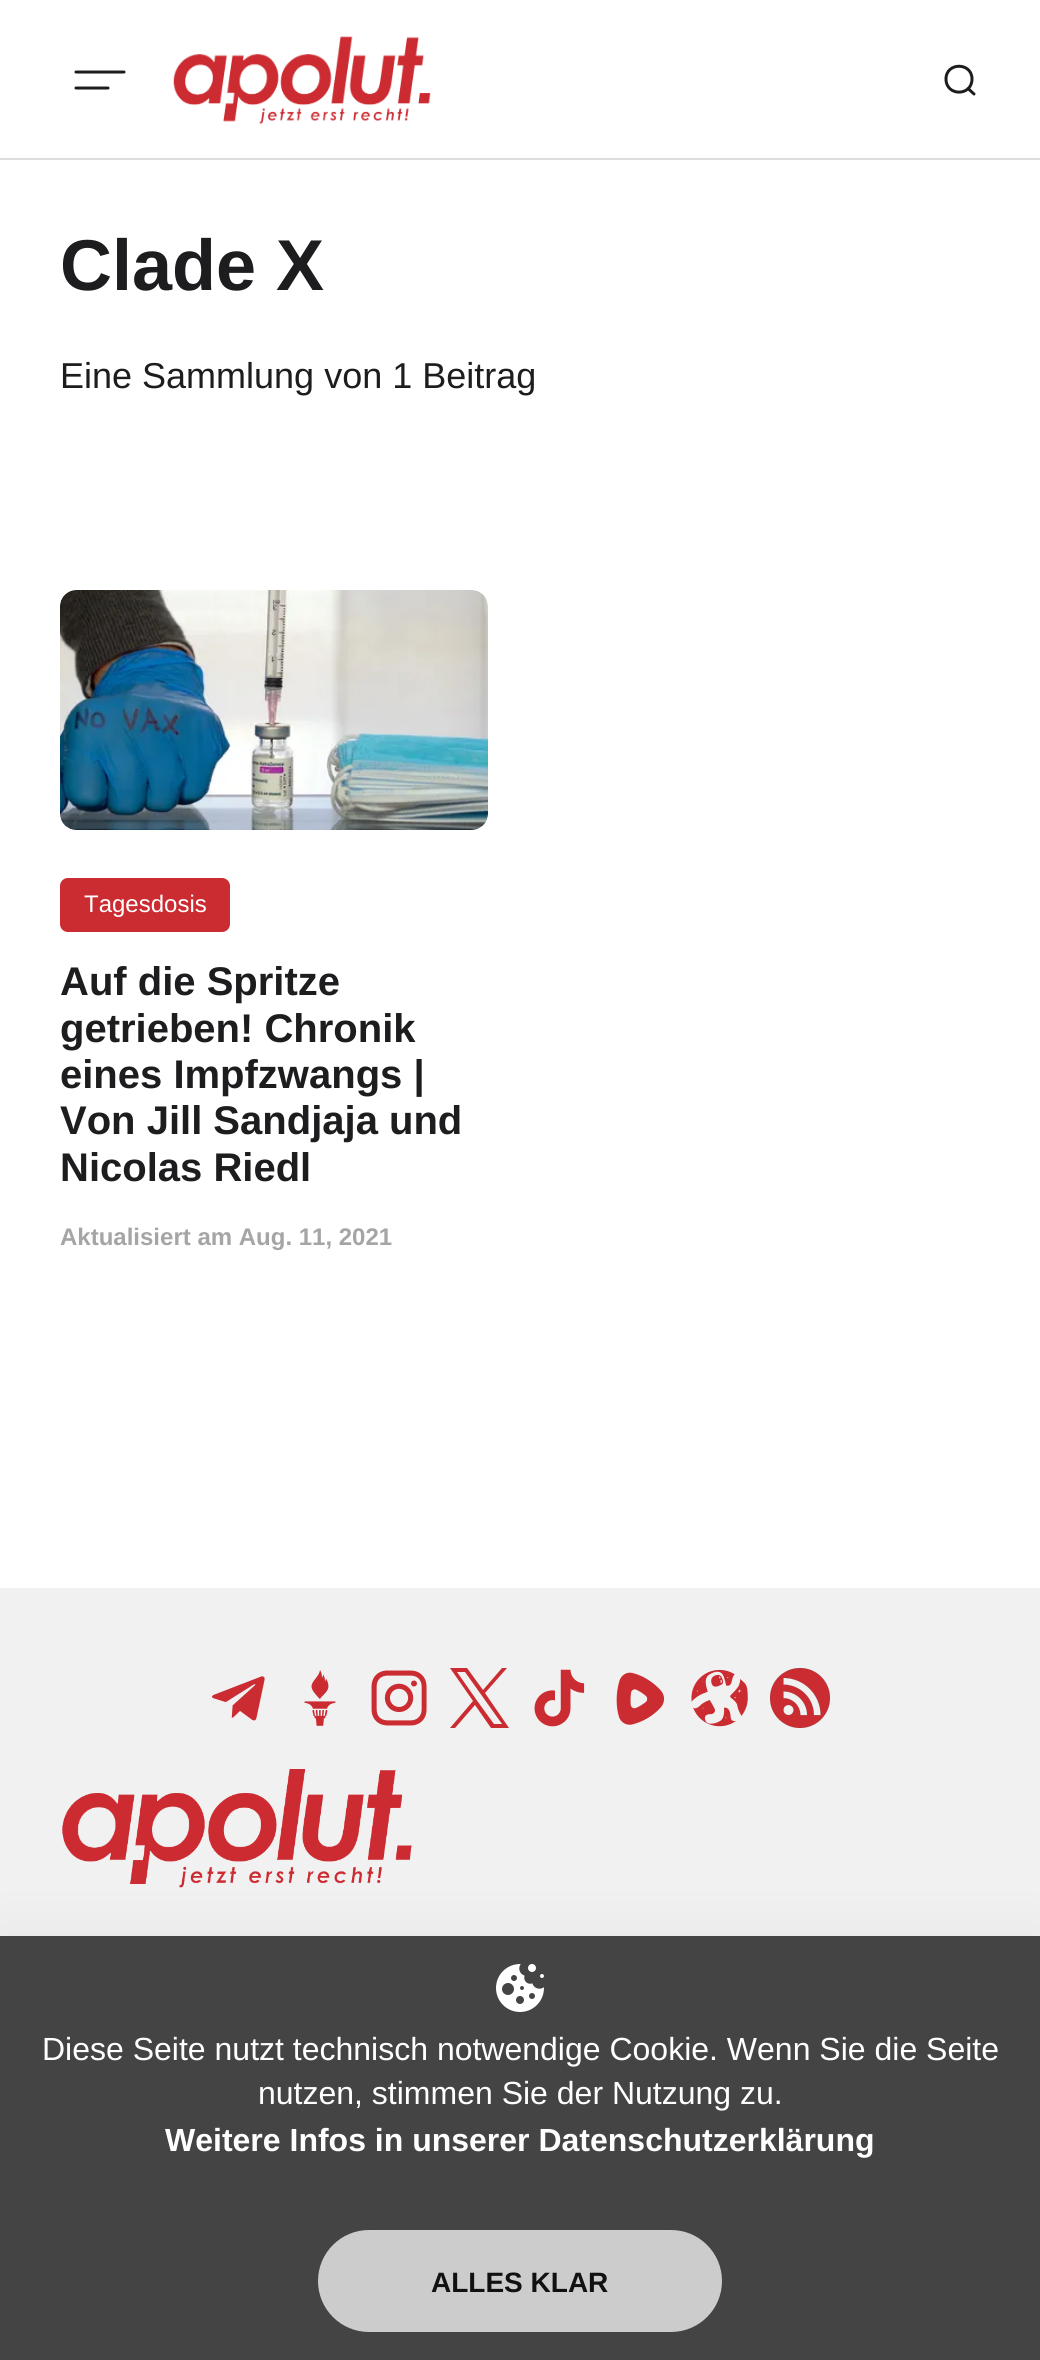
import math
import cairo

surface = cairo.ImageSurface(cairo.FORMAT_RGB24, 1040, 2360)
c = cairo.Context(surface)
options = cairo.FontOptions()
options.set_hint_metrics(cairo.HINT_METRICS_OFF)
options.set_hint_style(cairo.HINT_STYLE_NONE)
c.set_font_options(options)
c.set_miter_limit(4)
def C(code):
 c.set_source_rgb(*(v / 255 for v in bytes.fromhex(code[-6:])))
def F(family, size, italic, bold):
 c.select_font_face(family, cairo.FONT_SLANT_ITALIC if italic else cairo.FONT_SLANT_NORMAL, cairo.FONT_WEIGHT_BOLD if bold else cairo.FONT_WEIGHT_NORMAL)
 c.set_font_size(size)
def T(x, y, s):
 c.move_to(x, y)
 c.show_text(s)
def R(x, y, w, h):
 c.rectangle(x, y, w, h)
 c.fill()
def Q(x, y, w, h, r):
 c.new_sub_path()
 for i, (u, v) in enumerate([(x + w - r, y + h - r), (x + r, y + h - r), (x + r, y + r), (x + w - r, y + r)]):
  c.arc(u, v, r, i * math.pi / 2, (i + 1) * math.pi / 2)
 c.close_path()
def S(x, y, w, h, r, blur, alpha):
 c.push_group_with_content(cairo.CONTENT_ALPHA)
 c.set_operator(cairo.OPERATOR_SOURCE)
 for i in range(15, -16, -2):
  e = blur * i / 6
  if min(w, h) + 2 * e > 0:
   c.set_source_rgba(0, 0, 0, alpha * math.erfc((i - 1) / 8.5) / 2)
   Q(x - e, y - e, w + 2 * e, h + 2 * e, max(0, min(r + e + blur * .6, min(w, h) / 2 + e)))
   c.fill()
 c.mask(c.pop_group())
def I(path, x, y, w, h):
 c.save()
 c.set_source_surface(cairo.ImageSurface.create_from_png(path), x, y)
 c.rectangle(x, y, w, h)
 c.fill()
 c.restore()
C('ffffff')
c.paint()
C('dddddd')
R(0,158,1040,2)
c.new_path()
c.move_to(76,72)
c.line_to(124,72)
c.move_to(76,88)
c.line_to(108,88)
C('1d1d1f')
c.set_line_width(3)
c.set_line_cap(cairo.LINE_CAP_ROUND)
c.stroke()
I('1.png',173,36,258,88)
c.new_path()
c.move_to(968,88.5)
c.line_to(974,94)
c.move_to(972,79)
c.curve_to(972,96.5,946,96.5,946,79)
c.curve_to(946,62,972,62,972,79)
c.close_path()
c.stroke()
F('Liberation Sans',72,0,1)
T(60,290,'Clade X')
F('Liberation Sans',36,0,0)
T(60,388,'Eine Sammlung von 1 Beitrag')
I('2.png',60,590,428,240)
C('cb2c31')
Q(60,878,170,54,8)
c.fill()
F('Liberation Sans',24,0,0)
C('ffffff')
T(84,912,'Tagesdosis')
F('Liberation Sans',40,0,1)
C('1d1d1f')
T(60,995,'Auf die Spritze')
T(60,1042,'getrieben! Chronik')
T(60,1088,'eines Impfzwangs |')
T(60,1134,'Von Jill Sandjaja und')
T(60,1181,'Nicolas Riedl')
F('Liberation Sans',24,0,1)
C('a5a5a5')
T(60,1245,'Aktualisiert am Aug. 11, 2021')
C('f1f1f2')
R(0,1588,1040,348)
I('3.png',212,1676,53,45)
I('4.png',304,1670,32,56)
I('5.png',371,1670,56,56)
C('cb2c31')
c.new_path()
c.move_to(485,1693)
c.line_to(507,1668)
c.line_to(502,1668)
c.line_to(483,1690)
c.line_to(467,1668)
c.line_to(450,1668)
c.line_to(473,1701)
c.line_to(450,1728)
c.line_to(455,1728)
c.line_to(475,1705)
c.line_to(491,1728)
c.line_to(509,1728)
c.close_path()
c.move_to(478,1702)
c.line_to(457,1672)
c.line_to(465,1672)
c.line_to(502,1724)
c.line_to(494,1724)
c.close_path()
c.fill()
I('6.png',534,1669,51,58)
I('7.png',616,1672,48,53)
I('8.png',691,1669,57,58)
I('9.png',770,1668,60,60)
I('10.png',62,1769,350,119)
C('000000')
S(0,1936,1040,424,0,30,.05)
C('444444')
R(0,1936,1040,424)
I('11.png',496,1964,48,48)
F('Liberation Sans',32,0,0)
C('ffffff')
T(42,2060,'Diese Seite nutzt technisch notwendige Cookie. Wenn Sie die Seite')
T(258,2104,'nutzen, stimmen Sie der Nutzung zu.')
F('Liberation Sans',32,0,1)
T(165,2151,'Weitere Infos in unserer Datenschutzerklärung')
C('cccccc')
Q(318,2230,404,102,51)
c.fill()
F('Liberation Sans',28,0,1)
C('111111')
T(431,2292,'ALLES KLAR')
surface.write_to_png('o.png')
